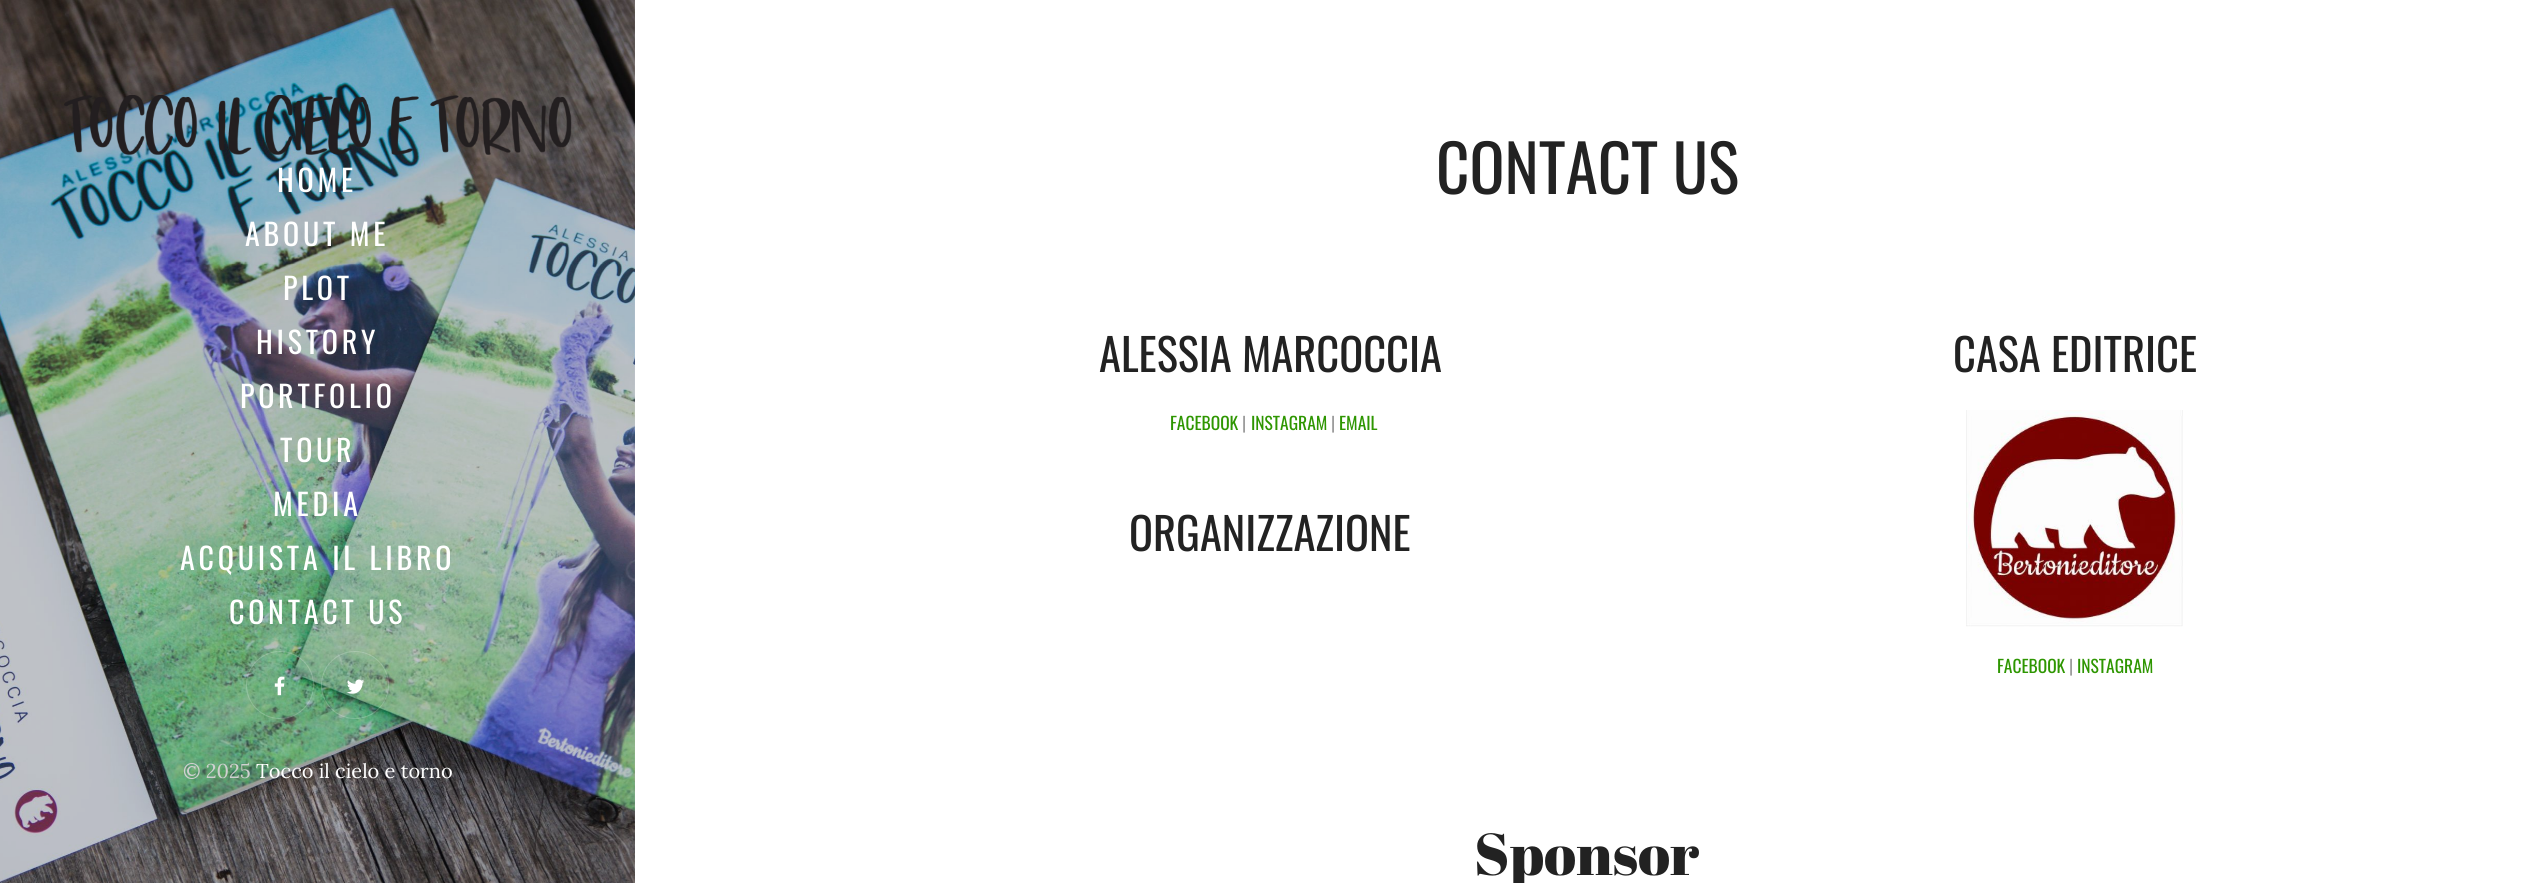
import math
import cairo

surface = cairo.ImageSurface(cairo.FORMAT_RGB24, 2539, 883)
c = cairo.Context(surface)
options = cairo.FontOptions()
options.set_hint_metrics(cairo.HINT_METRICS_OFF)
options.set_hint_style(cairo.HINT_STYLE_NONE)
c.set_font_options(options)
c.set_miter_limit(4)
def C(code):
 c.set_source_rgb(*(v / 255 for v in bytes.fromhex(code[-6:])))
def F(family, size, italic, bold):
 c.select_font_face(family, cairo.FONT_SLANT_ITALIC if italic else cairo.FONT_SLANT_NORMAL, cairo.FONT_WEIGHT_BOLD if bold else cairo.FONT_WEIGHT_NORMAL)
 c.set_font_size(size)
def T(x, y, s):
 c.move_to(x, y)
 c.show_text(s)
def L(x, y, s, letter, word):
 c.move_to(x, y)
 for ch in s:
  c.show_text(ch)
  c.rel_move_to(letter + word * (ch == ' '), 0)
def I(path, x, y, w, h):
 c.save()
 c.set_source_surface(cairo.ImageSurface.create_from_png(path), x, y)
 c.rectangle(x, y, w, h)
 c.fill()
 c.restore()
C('ffffff')
c.paint()
I('1.png',0,0,635,883)
I('2.png',64,95,508,60)
F('Oswald',30,0,0)
C('ffffff')
L(277,192,'HOME',3.75,0)
L(245,246,'ABOUT ME',3.75,0)
L(283,300,'PLOT',3.75,0)
L(256,354,'HISTORY',3.75,0)
L(240,408,'PORTFOLIO',3.75,0)
L(280,462,'TOUR',3.75,0)
L(273,516,'MEDIA',3.75,0)
L(180,570,'ACQUISTA IL LIBRO',3.75,0)
L(229,624,'CONTACT US',3.75,0)
c.new_path()
c.arc(280,685,33.5,0,2 * math.pi)
c.set_source_rgba(1,1,1,0.2)
c.set_line_width(1)
c.stroke()
I('3.png',274,676,11,20)
c.arc(355,685,33.5,0,2 * math.pi)
c.stroke()
I('4.png',347,679,18,15)
F('Lora',20,0,0)
C('d0d0d0')
T(183,778,'© 2025')
C('ffffff')
T(256,778,'Tocco il cielo e torno')
F('Oswald',65,0,0)
C('222222')
T(1436,194,'CONTACT US')
F('Oswald',44.5,0,0)
T(1099,372,'ALESSIA MARCOCCIA')
F('Oswald',17.5,0,0)
C('2e9601')
T(1170,430,'FACEBOOK')
C('999999')
T(1242,430,'|')
C('2e9601')
T(1251,430,'INSTAGRAM')
C('999999')
T(1331,430,'|')
C('2e9601')
T(1339,430,'EMAIL')
F('Oswald',44.5,0,0)
C('222222')
T(1129,551,'ORGANIZZAZIONE')
T(1953,372,'CASA EDITRICE')
I('5.png',1966,410,217,217)
F('Oswald',17.5,0,0)
C('2e9601')
T(1997,673,'FACEBOOK')
C('999999')
T(2069,673,'|')
C('2e9601')
T(2077,673,'INSTAGRAM')
F('Abril Fatface',59,0,0)
C('222222')
T(1474,875,'Sponsor')
surface.write_to_png('o.png')
